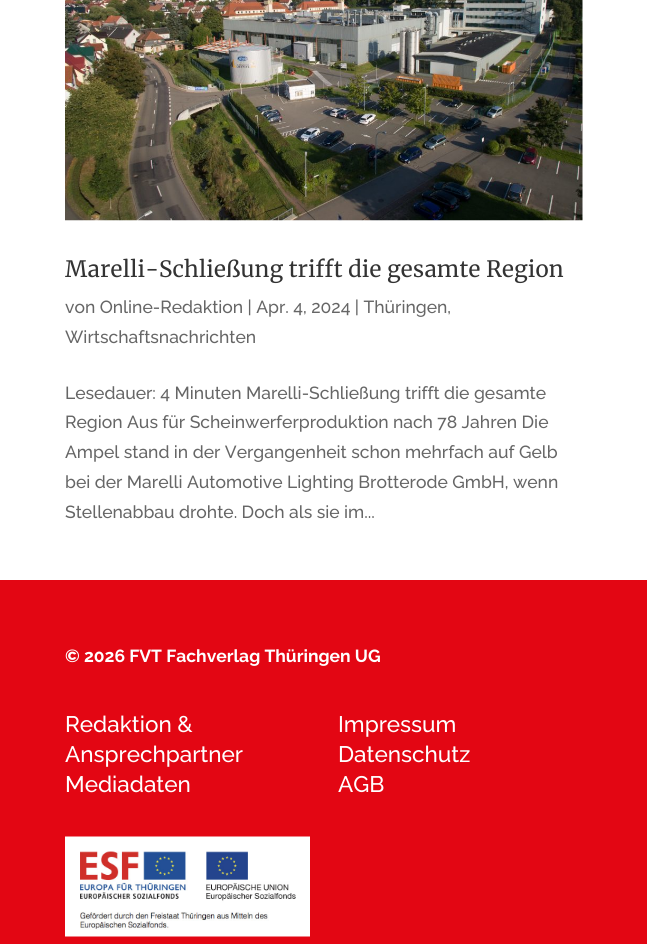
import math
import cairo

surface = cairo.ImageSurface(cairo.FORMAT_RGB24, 647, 944)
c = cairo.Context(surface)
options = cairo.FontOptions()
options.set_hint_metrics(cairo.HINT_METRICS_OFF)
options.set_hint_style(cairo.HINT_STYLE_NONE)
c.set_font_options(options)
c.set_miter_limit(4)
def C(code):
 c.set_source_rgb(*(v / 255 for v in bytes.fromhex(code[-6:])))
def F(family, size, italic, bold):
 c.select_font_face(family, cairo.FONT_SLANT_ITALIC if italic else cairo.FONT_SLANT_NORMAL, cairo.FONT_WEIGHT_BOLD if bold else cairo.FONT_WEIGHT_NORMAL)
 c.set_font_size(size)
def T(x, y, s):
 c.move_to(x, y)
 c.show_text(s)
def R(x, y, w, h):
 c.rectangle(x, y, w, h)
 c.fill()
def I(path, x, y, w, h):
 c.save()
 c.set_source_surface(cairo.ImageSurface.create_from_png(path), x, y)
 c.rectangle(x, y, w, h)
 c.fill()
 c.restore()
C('ffffff')
c.paint()
I('1.png',65,0,518,221)
F('Merriweather',22.5,0,0)
C('333333')
T(65,277,'Marelli-Schließung trifft die gesamte Region')
F('Raleway Medium',17.5,0,0)
C('666666')
T(65,313,'von Online-Redaktion | Apr. 4, 2024 | Thüringen,')
T(65,343,'Wirtschaftsnachrichten')
T(65,399,'Lesedauer: 4 Minuten Marelli-Schließung trifft die gesamte')
T(65,428,'Region Aus für Scheinwerferproduktion nach 78 Jahren Die')
T(65,458,'Ampel stand in der Vergangenheit schon mehrfach auf Gelb')
T(65,488,'bei der Marelli Automotive Lighting Brotterode GmbH, wenn')
T(65,518,'Stellenabbau drohte. Doch als sie im...')
C('e30613')
R(0,580,647,364)
F('Raleway',17.5,0,1)
C('ffffff')
T(65,662,'© 2026 FVT Fachverlag Thüringen UG')
F('Raleway Medium',22.5,0,0)
T(65,732,'Redaktion &')
T(65,762,'Ansprechpartner')
T(65,792,'Mediadaten')
T(338,732,'Impressum')
T(338,762,'Datenschutz')
T(338,792,'AGB')
I('2.png',65,836,245,101)
surface.write_to_png('o.png')
